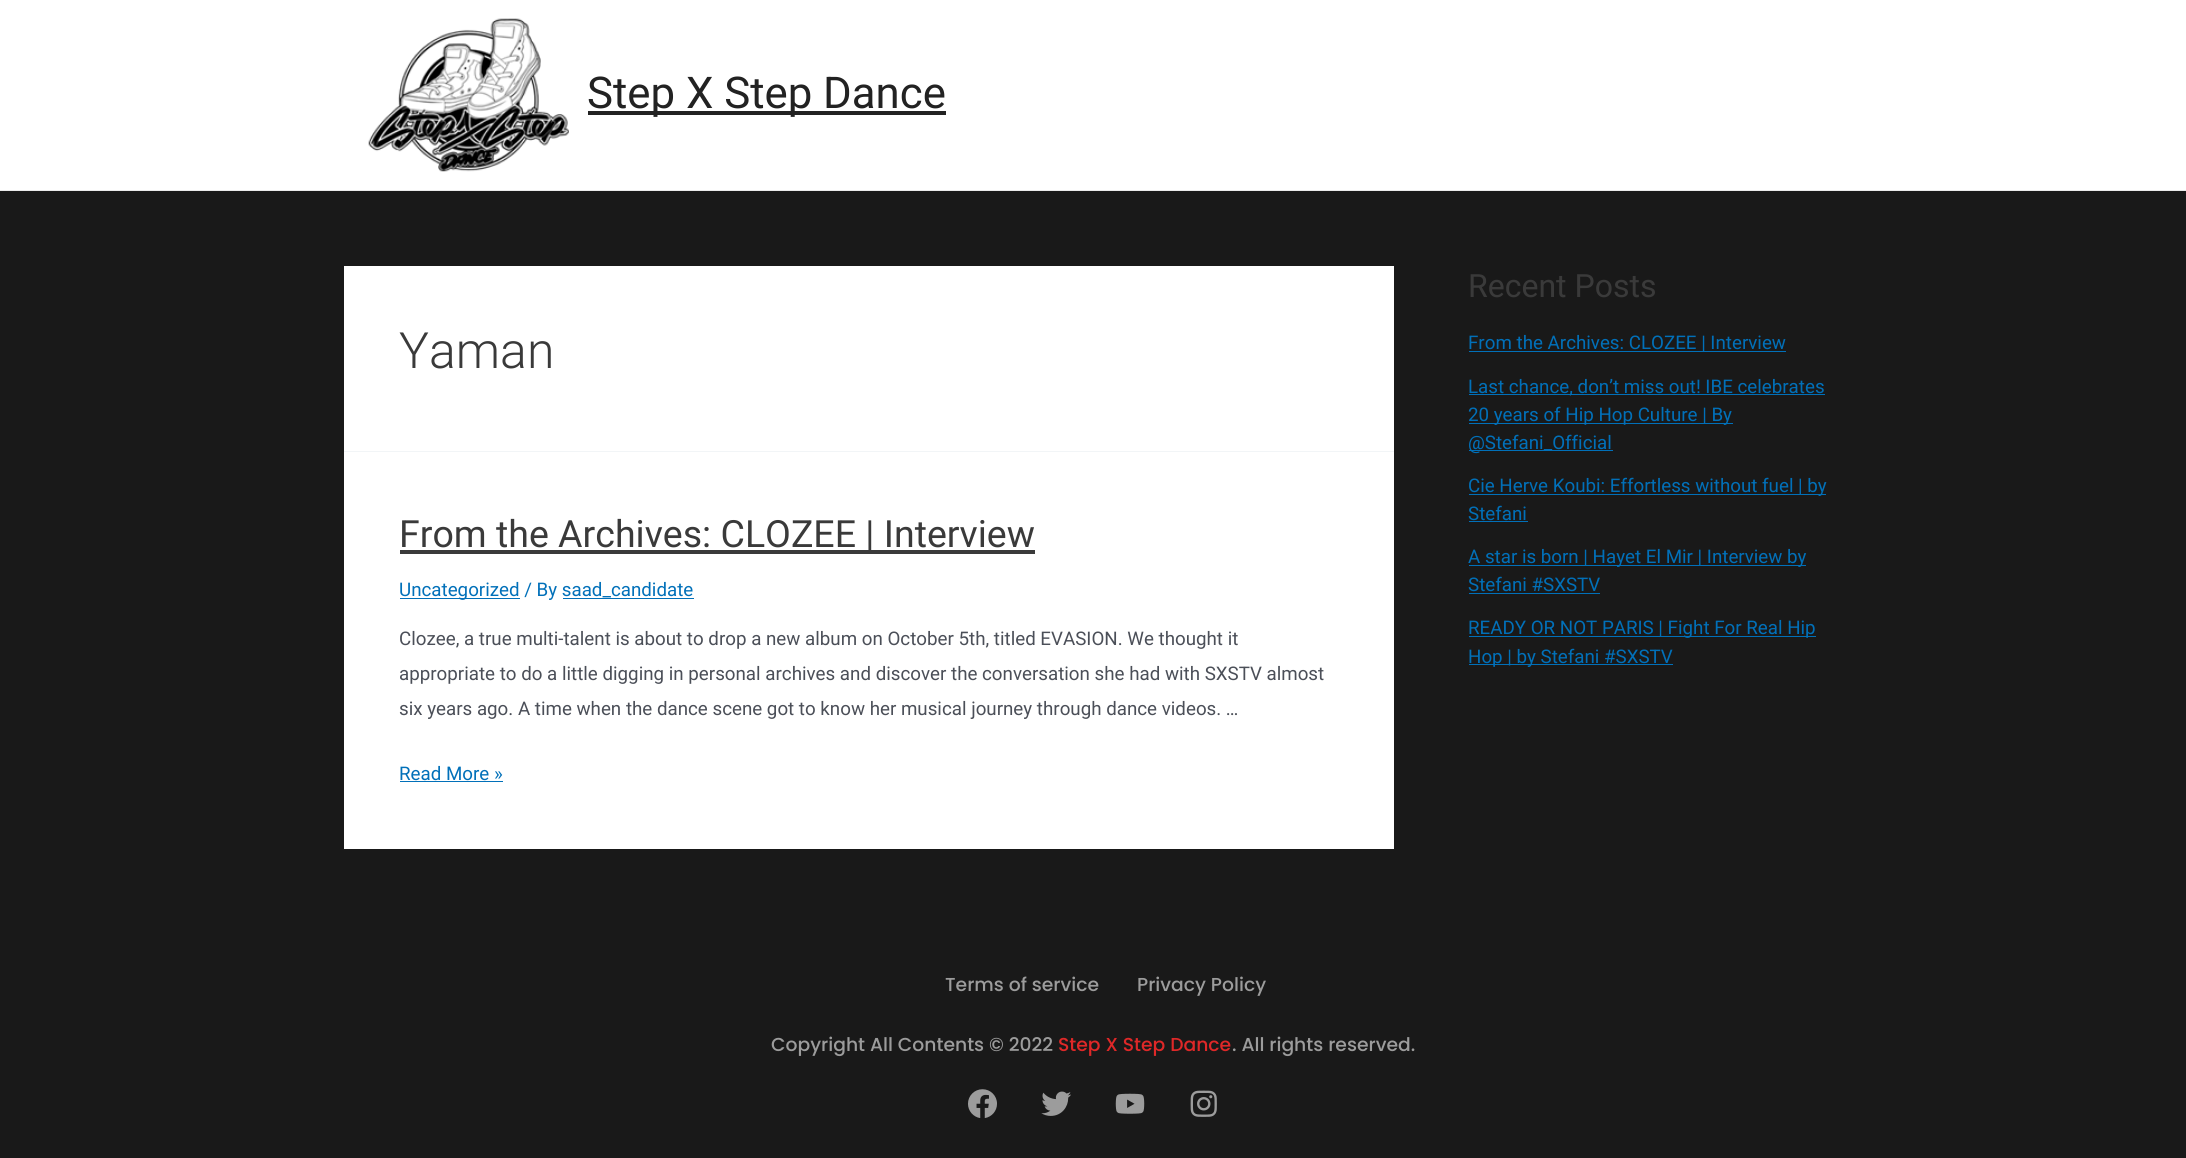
import math
import cairo

surface = cairo.ImageSurface(cairo.FORMAT_RGB24, 2186, 1158)
c = cairo.Context(surface)
options = cairo.FontOptions()
options.set_hint_metrics(cairo.HINT_METRICS_OFF)
options.set_hint_style(cairo.HINT_STYLE_NONE)
c.set_font_options(options)
c.set_miter_limit(4)
def C(code):
 c.set_source_rgb(*(v / 255 for v in bytes.fromhex(code[-6:])))
def F(family, size, italic, bold):
 c.select_font_face(family, cairo.FONT_SLANT_ITALIC if italic else cairo.FONT_SLANT_NORMAL, cairo.FONT_WEIGHT_BOLD if bold else cairo.FONT_WEIGHT_NORMAL)
 c.set_font_size(size)
def T(x, y, s):
 c.move_to(x, y)
 c.show_text(s)
def R(x, y, w, h):
 c.rectangle(x, y, w, h)
 c.fill()
def I(path, x, y, w, h):
 c.save()
 c.set_source_surface(cairo.ImageSurface.create_from_png(path), x, y)
 c.rectangle(x, y, w, h)
 c.fill()
 c.restore()
C('191919')
c.paint()
C('ffffff')
R(0,0,2186,190)
C('eaeaea')
R(0,190,2186,1)
I('1.png',368,18,201,154)
C('222222')
R(588,111,358,4)
F('Roboto',43.75,0,0)
T(587,108,'Step X Step Dance')
C('ffffff')
R(344,266,1050,583)
C('f2f5f7')
R(344,451,1050,1)
F('Roboto Light',50,0,0)
C('3a3a3a')
T(399,368,'Yaman')
R(400,550,635,4)
F('Roboto',37.5,0,0)
T(399,547,'From the Archives: CLOZEE | Interview')
C('0170b9')
R(400,598,120,1)
F('Roboto',18.75,0,0)
T(399,596,'Uncategorized / By saad_candidate')
R(563,598,131,1)
C('4b4f58')
T(399,645,'Clozee, a true multi-talent is about to drop a new album on October 5th, titled EVASION. We thought it')
T(399,680,'appropriate to do a little digging in personal archives and discover the conversation she had with SXSTV almost')
T(399,715,'six years ago. A time when the dance scene got to know her musical journey through dance videos. …')
C('0170b9')
T(399,780,'Read More »')
R(400,781,103,1)
F('Roboto',32,0,0)
C('3a3a3a')
T(1468,297,'Recent Posts')
C('0170b9')
R(1469,351,317,1)
F('Roboto',18.75,0,0)
T(1468,349,'From the Archives: CLOZEE | Interview')
R(1469,394,356,1)
T(1468,393,'Last chance, don’t miss out! IBE celebrates')
R(1469,423,264,1)
T(1468,421,'20 years of Hip Hop Culture | By')
R(1469,450,144,1)
T(1468,449,'@Stefani_Official')
R(1469,494,357,1)
T(1468,492,'Cie Herve Koubi: Effortless without fuel | by')
T(1468,520,'Stefani')
R(1469,521,59,1)
R(1469,565,337,1)
T(1468,563,'A star is born | Hayet El Mir | Interview by')
T(1468,591,'Stefani #SXSTV')
R(1469,593,131,1)
R(1469,636,347,1)
T(1468,634,'READY OR NOT PARIS | Fight For Real Hip')
R(1469,664,204,1)
T(1468,663,'Hop | by Stefani #SXSTV')
F('Poppins Medium',18.75,0,0)
C('9c9c9c')
T(945,991,'Terms of service')
T(1137,991,'Privacy Policy')
T(771,1051,'Copyright All Contents © 2022')
C('df2828')
T(1058,1051,'Step X Step Dance')
C('9c9c9c')
T(1232,1051,'. All rights reserved.')
I('2.png',968,1089,29,29)
I('3.png',1041,1091,30,25)
I('4.png',1115,1093,30,21)
I('5.png',1190,1090,27,27)
surface.write_to_png('o.png')
